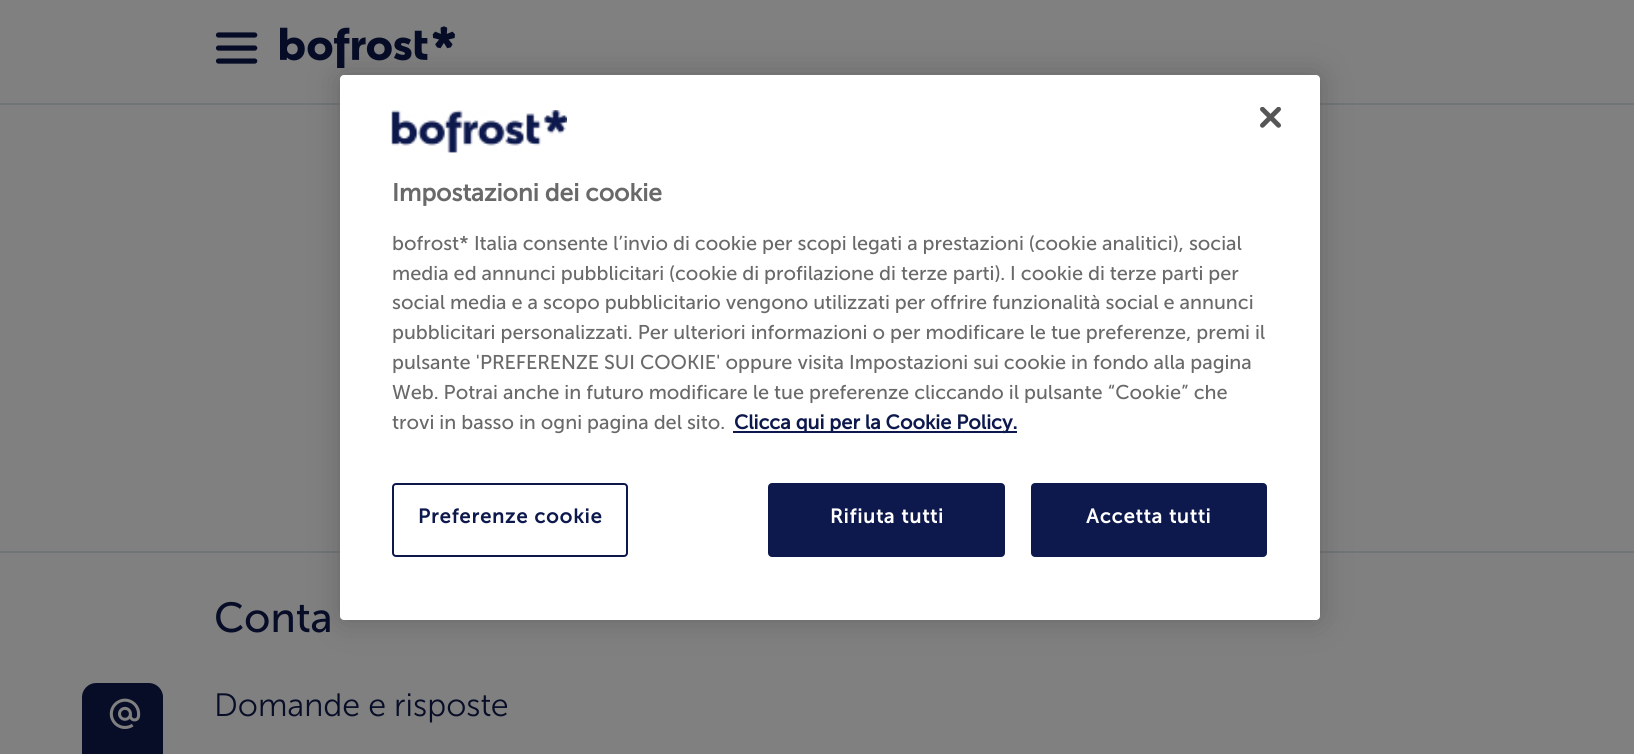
import math
import cairo

surface = cairo.ImageSurface(cairo.FORMAT_RGB24, 1634, 754)
c = cairo.Context(surface)
options = cairo.FontOptions()
options.set_hint_metrics(cairo.HINT_METRICS_OFF)
options.set_hint_style(cairo.HINT_STYLE_NONE)
c.set_font_options(options)
c.set_miter_limit(4)
def C(code):
 c.set_source_rgb(*(v / 255 for v in bytes.fromhex(code[-6:])))
def F(family, size, italic, bold):
 c.select_font_face(family, cairo.FONT_SLANT_ITALIC if italic else cairo.FONT_SLANT_NORMAL, cairo.FONT_WEIGHT_BOLD if bold else cairo.FONT_WEIGHT_NORMAL)
 c.set_font_size(size)
def T(x, y, s):
 c.move_to(x, y)
 c.show_text(s)
def L(x, y, s, letter, word):
 c.move_to(x, y)
 for ch in s:
  c.show_text(ch)
  c.rel_move_to(letter + word * (ch == ' '), 0)
def R(x, y, w, h):
 c.rectangle(x, y, w, h)
 c.fill()
def Q(x, y, w, h, r):
 c.new_sub_path()
 for i, (u, v) in enumerate([(x + w - r, y + h - r), (x + r, y + h - r), (x + r, y + r), (x + w - r, y + r)]):
  c.arc(u, v, r, i * math.pi / 2, (i + 1) * math.pi / 2)
 c.close_path()
def S(x, y, w, h, r, blur, alpha):
 c.push_group_with_content(cairo.CONTENT_ALPHA)
 c.set_operator(cairo.OPERATOR_SOURCE)
 for i in range(15, -16, -2):
  e = blur * i / 6
  if min(w, h) + 2 * e > 0:
   c.set_source_rgba(0, 0, 0, alpha * math.erfc((i - 1) / 8.5) / 2)
   Q(x - e, y - e, w + 2 * e, h + 2 * e, max(0, min(r + e + blur * .6, min(w, h) / 2 + e)))
   c.fill()
 c.mask(c.pop_group())
def I(path, x, y, w, h):
 c.save()
 c.set_source_surface(cairo.ImageSurface.create_from_png(path), x, y)
 c.rectangle(x, y, w, h)
 c.fill()
 c.restore()
C('808080')
c.paint()
C('707577')
R(0,103,1634,2)
I('4.png',280,26,175,42)
R(0,551,1634,2)
C('000000')
S(340,75,980,545,4,16,.2)
C('ffffff')
Q(340,75,980,545,4)
c.fill()
I('1.png',1260,107,21,21)
I('2.png',391,110,176,43)
F('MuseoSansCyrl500',24.5,0,1)
C('696969')
T(392,201,'Impostazioni dei cookie')
F('MuseoSansCyrl500',19.9,0,0)
T(392,250,'bofrost* Italia consente l’invio di cookie per scopi legati a prestazioni (cookie analitici), social')
T(392,280,'media ed annunci pubblicitari (cookie di profilazione di terze parti). I cookie di terze parti per')
T(392,309,'social media e a scopo pubblicitario vengono utilizzati per offrire funzionalità social e annunci')
T(392,339,'pubblicitari personalizzati. Per ulteriori informazioni o per modificare le tue preferenze, premi il')
T(392,369,'pulsante \'PREFERENZE SUI COOKIE\' oppure visita Impostazioni sui cookie in fondo alla pagina')
T(392,399,'Web. Potrai anche in futuro modificare le tue preferenze cliccando il pulsante “Cookie” che')
T(392,429,'trovi in basso in ogni pagina del sito.')
C('0d194d')
R(733,431,284,2)
F('MuseoSansCyrl500',19.9,0,1)
T(734,429,'Clicca qui per la Cookie Policy.')
Q(393,484,234,72,3)
c.stroke()
L(418,523,'Preferenze cookie',1,0)
Q(769,484,235,72,3)
c.fill_preserve()
c.stroke()
C('ffffff')
L(830,523,'Rifiuta tutti',1,0)
C('0d194d')
Q(1032,484,234,72,3)
c.fill_preserve()
c.stroke()
C('ffffff')
L(1086,523,'Accetta tutti',1,0)
I('3.png',215,32,43,32)
C('070d27')
c.new_path()
c.move_to(96,683)
c.line_to(149,683)
c.curve_to(156.5,683,163,689.5,163,697)
c.line_to(163,754)
c.line_to(82,754)
c.line_to(82,697)
c.curve_to(82,689.5,88.5,683,96,683)
c.close_path()
c.fill()
I('5.png',109,698,32,31)
F('MuseoSansCyrl500',42,0,0)
T(214,632,'Conta')
F('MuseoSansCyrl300',32.25,0,0)
T(214,716,'Domande e risposte')
surface.write_to_png('o.png')
